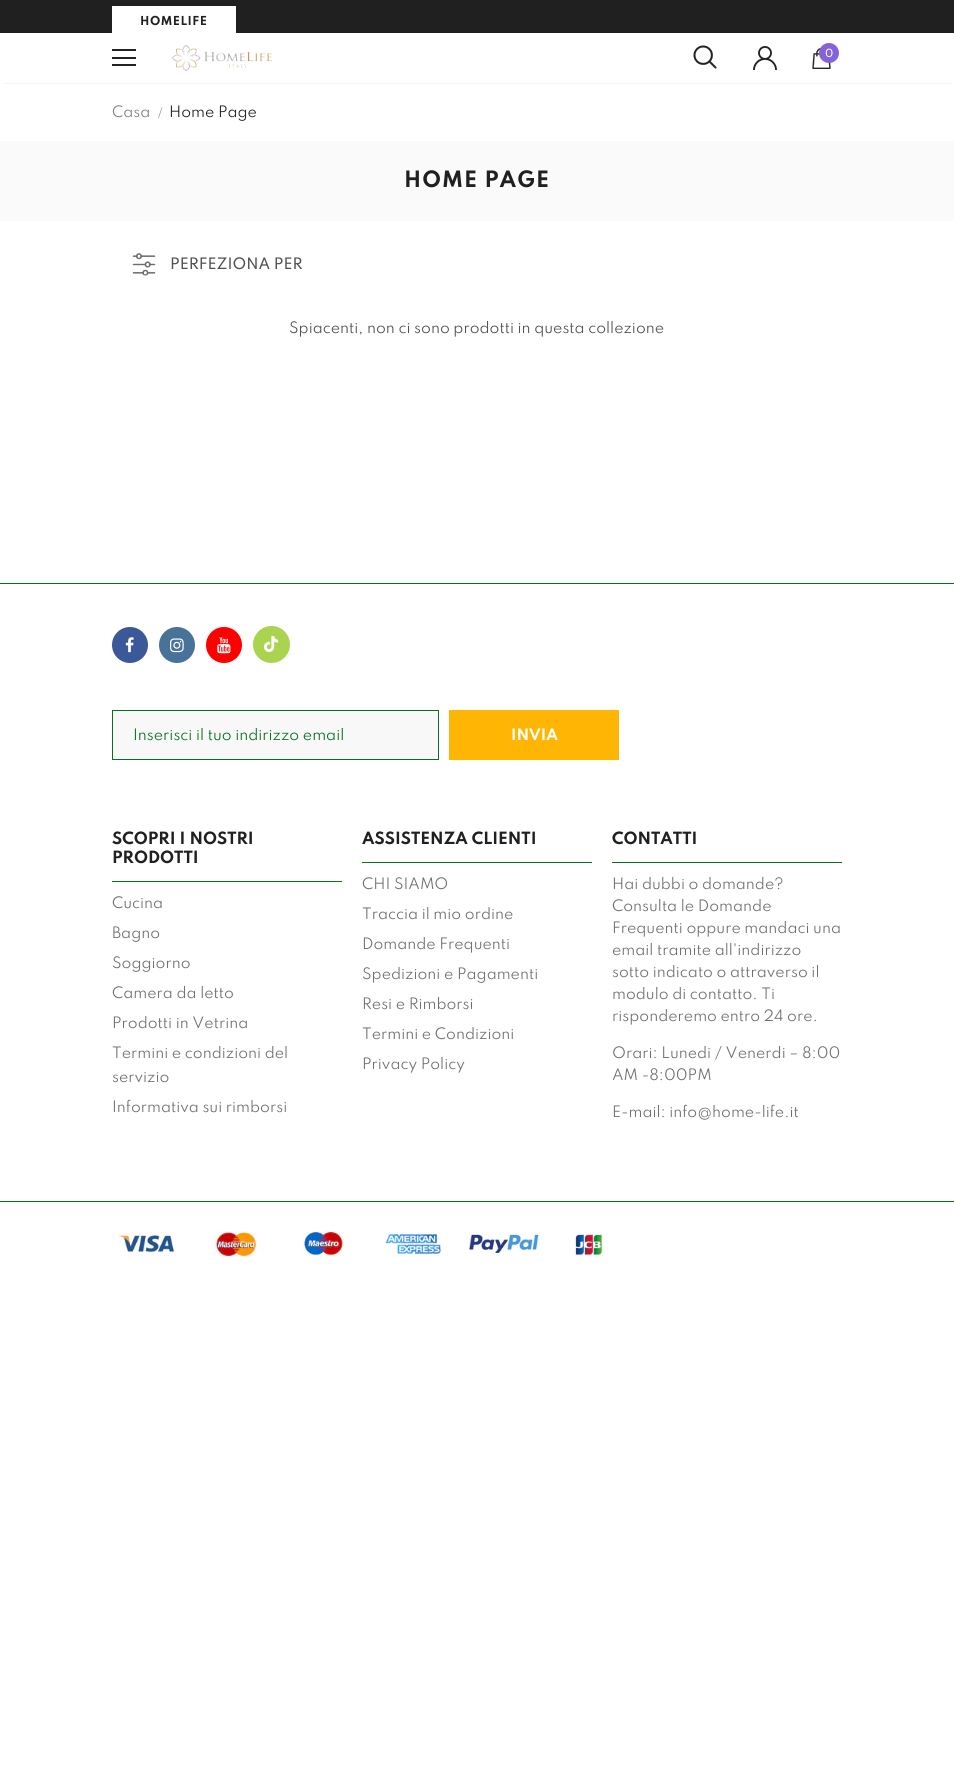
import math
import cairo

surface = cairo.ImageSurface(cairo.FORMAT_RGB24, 954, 1777)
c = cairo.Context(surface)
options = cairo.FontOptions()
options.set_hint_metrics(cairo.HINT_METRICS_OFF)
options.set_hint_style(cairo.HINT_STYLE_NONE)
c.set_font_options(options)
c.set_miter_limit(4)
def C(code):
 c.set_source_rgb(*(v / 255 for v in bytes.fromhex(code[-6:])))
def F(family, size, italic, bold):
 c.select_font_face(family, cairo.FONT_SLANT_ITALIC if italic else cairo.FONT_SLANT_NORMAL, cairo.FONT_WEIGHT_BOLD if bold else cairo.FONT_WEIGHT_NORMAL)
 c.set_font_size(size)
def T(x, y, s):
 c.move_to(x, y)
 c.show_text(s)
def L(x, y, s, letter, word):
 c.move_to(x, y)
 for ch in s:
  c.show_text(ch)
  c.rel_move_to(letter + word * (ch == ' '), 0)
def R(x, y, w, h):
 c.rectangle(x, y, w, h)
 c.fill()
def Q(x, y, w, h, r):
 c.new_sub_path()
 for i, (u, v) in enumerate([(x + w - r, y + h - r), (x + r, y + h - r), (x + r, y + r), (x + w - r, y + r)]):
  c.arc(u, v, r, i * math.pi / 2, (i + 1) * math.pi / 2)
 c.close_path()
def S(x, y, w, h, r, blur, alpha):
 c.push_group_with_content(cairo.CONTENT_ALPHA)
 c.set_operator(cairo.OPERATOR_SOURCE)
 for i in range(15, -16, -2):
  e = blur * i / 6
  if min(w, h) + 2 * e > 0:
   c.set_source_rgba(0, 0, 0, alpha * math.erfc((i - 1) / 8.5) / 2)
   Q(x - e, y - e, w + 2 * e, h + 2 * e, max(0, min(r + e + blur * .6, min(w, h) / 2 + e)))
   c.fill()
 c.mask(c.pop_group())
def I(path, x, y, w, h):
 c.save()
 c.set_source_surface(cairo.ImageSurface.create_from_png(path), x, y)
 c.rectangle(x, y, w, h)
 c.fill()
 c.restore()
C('ffffff')
c.paint()
C('202020')
R(0,0,954,33)
C('ffffff')
R(112,6,124,27)
F('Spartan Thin',11,0,1)
C('202020')
L(140,25,'HOMELIFE',.5,0)
c.save()
c.rectangle(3,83,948,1)
c.clip()
C('000000')
S(3,39,948,44,0,1.5,.12)
c.restore()
C('232323')
R(112,49,24,2)
R(112,57,24,2)
R(112,64,24,2)
I('1.png',172,45,100,26)
I('2.png',693,45,24,24)
I('3.png',753,46,24,24)
I('4.png',812,48,19,21)
C('8463d8')
c.arc(829,53,10,0,2 * math.pi)
c.fill()
F('Spartan Thin Medium',10,0,0)
C('ffffff')
T(825,57,'0')
F('Spartan Thin',14,0,0)
C('808080')
T(112,117,'Casa')
F('Liberation Serif',16,0,0)
C('999999')
T(158,118,'/')
F('Spartan Thin',14,0,0)
C('202020')
T(169,117,'Home Page')
C('fafafa')
R(0,141,954,80)
F('Spartan Thin',20,0,1)
C('202020')
L(404,187,'HOME PAGE',1,0)
I('5.png',132,253,24,23)
F('Spartan Thin Medium',14,0,0)
C('505050')
T(170,269,'PERFEZIONA PER')
F('Spartan Thin',14,0,0)
T(289,333,'Spiacenti, non ci sono prodotti in questa collezione')
C('0a6e1e')
R(0,583,954,1)
C('3b5998')
c.new_path()
c.arc(130,645,18,0,2 * math.pi)
c.fill()
I('6.png',125,637,9,16)
C('497299')
c.arc(177,645,18,0,2 * math.pi)
c.fill()
I('7.png',170,638,14,15)
C('ff0000')
c.arc(224,645,18,0,2 * math.pi)
c.fill()
I('8.png',217,637,14,17)
C('aad450')
c.arc(271.5,644.5,18.5,0,2 * math.pi)
c.fill()
I('9.png',264,636,15,16)
C('f8f8f8')
c.rectangle(112.5,710.5,326,49)
c.fill_preserve()
C('0a6e1e')
c.set_line_width(1)
c.stroke()
T(133,740,'Inserisci il tuo indirizzo email')
C('ffb503')
R(449,710,170,50)
F('Spartan Thin',14,0,1)
C('ffffff')
T(511,740,'INVIA')
C('0a6e1e')
R(112,881,230,1)
F('Spartan Thin',15,0,1)
C('202020')
T(112,844,'SCOPRI I NOSTRI')
T(112,863,'PRODOTTI')
F('Spartan Thin',14,0,0)
C('707070')
T(112,908,'Cucina')
T(112,938,'Bagno')
T(112,968,'Soggiorno')
T(112,998,'Camera da letto')
T(112,1028,'Prodotti in Vetrina')
T(112,1058,'Termini e condizioni del')
T(112,1082,'servizio')
T(112,1112,'Informativa sui rimborsi')
C('0a6e1e')
R(362,862,230,1)
F('Spartan Thin',15,0,1)
C('202020')
T(362,844,'ASSISTENZA CLIENTI')
F('Spartan Thin',14,0,0)
C('707070')
T(362,889,'CHI SIAMO')
T(362,919,'Traccia il mio ordine')
T(362,949,'Domande Frequenti')
T(362,979,'Spedizioni e Pagamenti')
T(362,1009,'Resi e Rimborsi')
T(362,1039,'Termini e Condizioni')
T(362,1069,'Privacy Policy')
C('0a6e1e')
R(612,862,230,1)
F('Spartan Thin',15,0,1)
C('202020')
T(612,844,'CONTATTI')
F('Spartan Thin',14,0,0)
C('707070')
T(612,889,'Hai dubbi o domande?')
T(612,911,'Consulta le Domande')
T(612,933,'Frequenti oppure mandaci una')
T(612,955,'email tramite all\'indirizzo')
T(612,977,'sotto indicato o attraverso il')
T(612,999,'modulo di contatto. Ti')
T(612,1021,'risponderemo entro 24 ore.')
T(612,1058,'Orari: Lunedi / Venerdi – 8:00')
T(612,1080,'AM -8:00PM')
T(612,1117,'E-mail: info@home-life.it')
C('0a6e1e')
R(0,1201,954,1)
I('10.png',118,1232,59,24)
I('11.png',212,1232,49,24)
I('12.png',301,1232,43,24)
I('13.png',384,1232,60,24)
I('14.png',466,1232,73,24)
I('15.png',573,1232,30,24)
surface.write_to_png('o.png')
